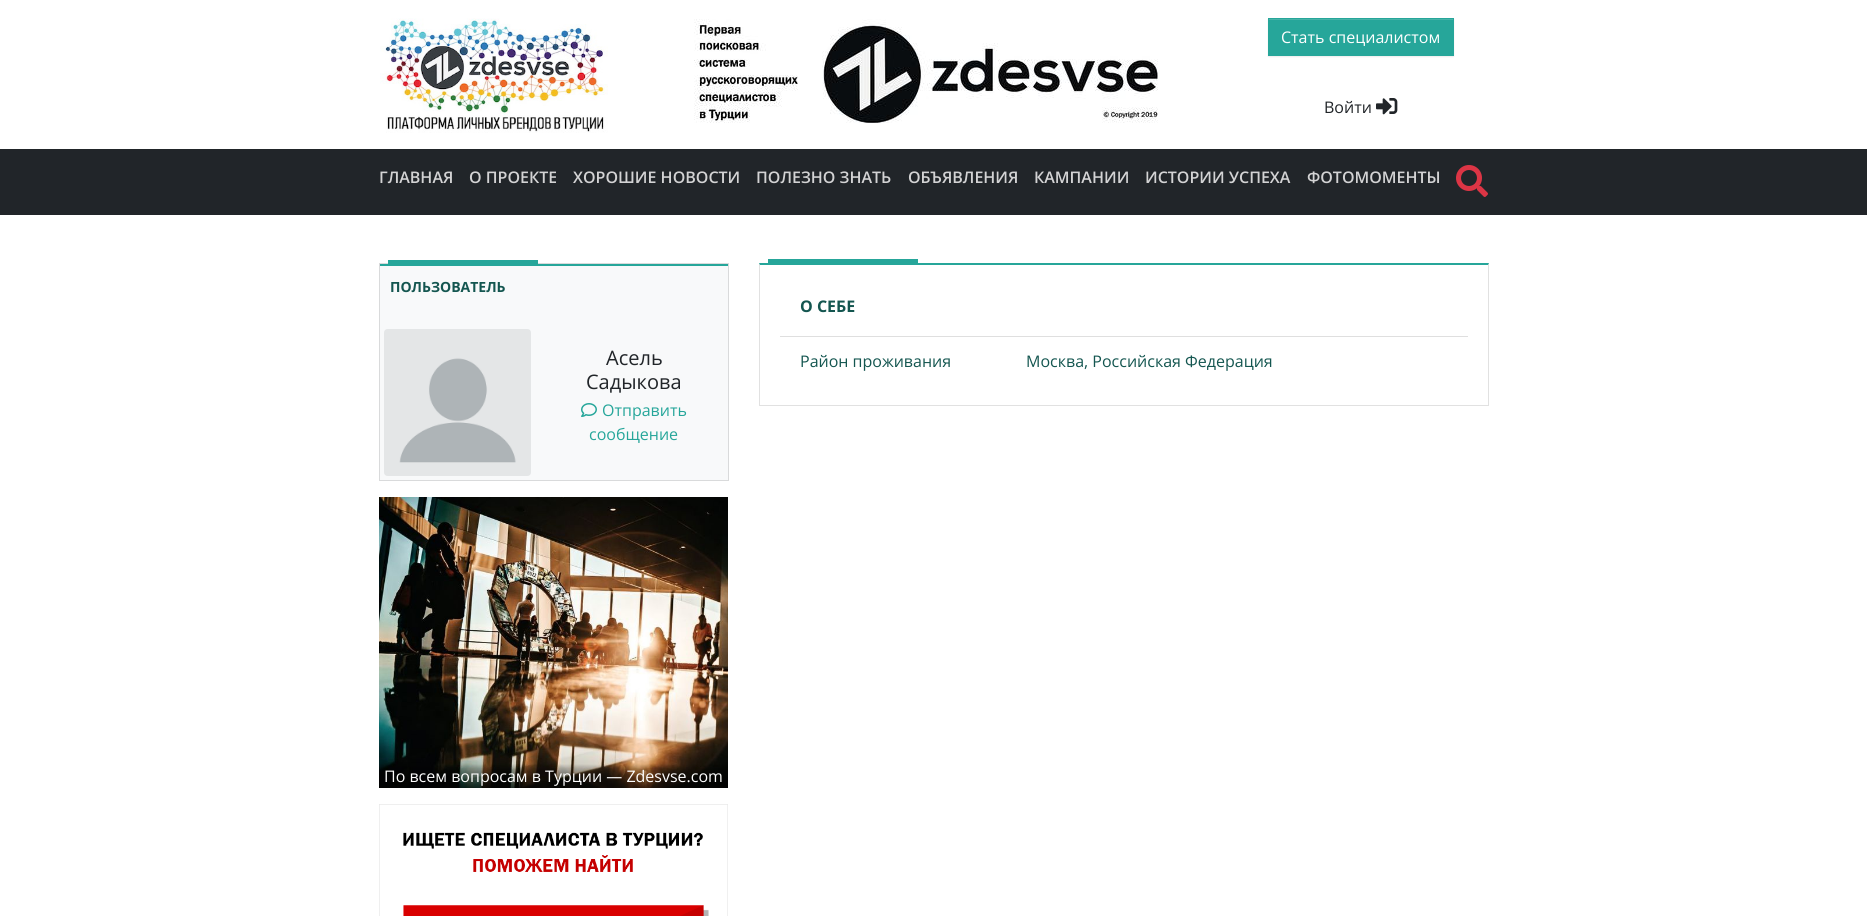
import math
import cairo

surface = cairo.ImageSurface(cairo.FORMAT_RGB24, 1867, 916)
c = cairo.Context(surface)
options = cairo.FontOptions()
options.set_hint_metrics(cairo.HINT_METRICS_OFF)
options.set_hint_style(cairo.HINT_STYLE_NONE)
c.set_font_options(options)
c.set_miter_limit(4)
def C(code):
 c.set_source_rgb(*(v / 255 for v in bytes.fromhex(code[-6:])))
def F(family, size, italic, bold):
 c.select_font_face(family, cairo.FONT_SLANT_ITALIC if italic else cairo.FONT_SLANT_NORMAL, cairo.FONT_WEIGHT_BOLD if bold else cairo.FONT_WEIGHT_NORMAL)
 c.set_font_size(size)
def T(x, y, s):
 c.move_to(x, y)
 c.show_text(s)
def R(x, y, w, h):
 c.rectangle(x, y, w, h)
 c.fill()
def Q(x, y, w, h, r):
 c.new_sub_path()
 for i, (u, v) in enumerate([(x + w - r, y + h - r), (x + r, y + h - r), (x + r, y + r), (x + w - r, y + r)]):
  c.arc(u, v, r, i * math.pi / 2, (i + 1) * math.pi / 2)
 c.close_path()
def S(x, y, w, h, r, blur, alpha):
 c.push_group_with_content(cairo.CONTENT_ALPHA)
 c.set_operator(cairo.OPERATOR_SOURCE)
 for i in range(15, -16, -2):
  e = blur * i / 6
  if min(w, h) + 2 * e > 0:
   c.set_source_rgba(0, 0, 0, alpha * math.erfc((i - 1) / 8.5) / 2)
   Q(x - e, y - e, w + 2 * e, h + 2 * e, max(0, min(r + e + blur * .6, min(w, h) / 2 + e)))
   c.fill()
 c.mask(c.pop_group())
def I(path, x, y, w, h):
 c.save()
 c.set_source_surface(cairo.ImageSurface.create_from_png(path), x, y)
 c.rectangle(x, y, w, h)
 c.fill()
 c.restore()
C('ffffff')
c.paint()
I('1.png',380,18,228,115)
I('2.png',694,19,464,104)
C('000000')
S(1268,19,186,38,0,.5,.07)
C('26a69a')
R(1268,18,186,38)
C('47b3a9')
R(1269,19,184,1)
F('Open Sans',16,0,0)
C('ffffff')
T(1281,43,'Стать специалистом')
C('212529')
T(1324,113,'Войти')
I('3.png',1376,98,22,17)
R(0,149,1867,66)
F('Open Sans SemiBold',16,0,0)
C('d3d3d4')
T(379,183,'ГЛАВНАЯ')
T(469,183,'О ПРОЕКТЕ')
T(573,183,'ХОРОШИЕ НОВОСТИ')
T(756,183,'ПОЛЕЗНО ЗНАТЬ')
T(908,183,'ОБЪЯВЛЕНИЯ')
T(1034,183,'КАМПАНИИ')
T(1145,183,'ИСТОРИИ УСПЕХА')
T(1307,183,'ФОТОМОМЕНТЫ')
I('4.png',1456,165,32,32)
C('f8f9fa')
R(380,266,348,214)
c.rectangle(379.5,263.5,349,217)
C('d9dadb')
c.set_line_width(1)
c.stroke()
C('26a69a')
R(380,264,348,2)
R(388,260,150,4)
F('Open Sans',14,0,1)
C('145650')
T(390,292,'ПОЛЬЗОВАТЕЛЬ')
I('5.png',384,329,147,147)
F('Open Sans',20,0,0)
C('212529')
T(606,365,'Асель')
T(586,389,'Садыкова')
I('6.png',581,403,16,14)
F('Open Sans',16,0,0)
C('26a69a')
T(602,416,'Отправить')
T(589,440,'сообщение')
I('7.png',379,497,349,291)
C('ffffff')
T(384,782,'По всем вопросам в Турции — Zdesvse.com')
I('8.png',379,804,349,112)
C('26a69a')
c.new_path()
c.move_to(759,263)
c.line_to(1489,263)
c.line_to(1488,265)
c.line_to(760,265)
c.close_path()
c.fill()
c.set_source_rgba(0,0,0,0.12)
c.new_path()
c.move_to(1489,263)
c.line_to(1489,406)
c.line_to(1488,405)
c.line_to(1488,265)
c.close_path()
c.fill()
c.new_path()
c.move_to(1489,406)
c.line_to(759,406)
c.line_to(760,405)
c.line_to(1488,405)
c.close_path()
c.fill()
c.new_path()
c.move_to(759,406)
c.line_to(759,263)
c.line_to(760,265)
c.line_to(760,405)
c.close_path()
c.fill()
C('26a69a')
R(768,259,150,4)
F('Open Sans',16,0,1)
C('145650')
T(800,312,'О СЕБЕ')
C('dfdfdf')
R(780,336,688,1)
F('Open Sans',16,0,0)
C('145650')
T(800,367,'Район проживания')
T(1026,367,'Москва, Российская Федерация')
surface.write_to_png('o.png')
